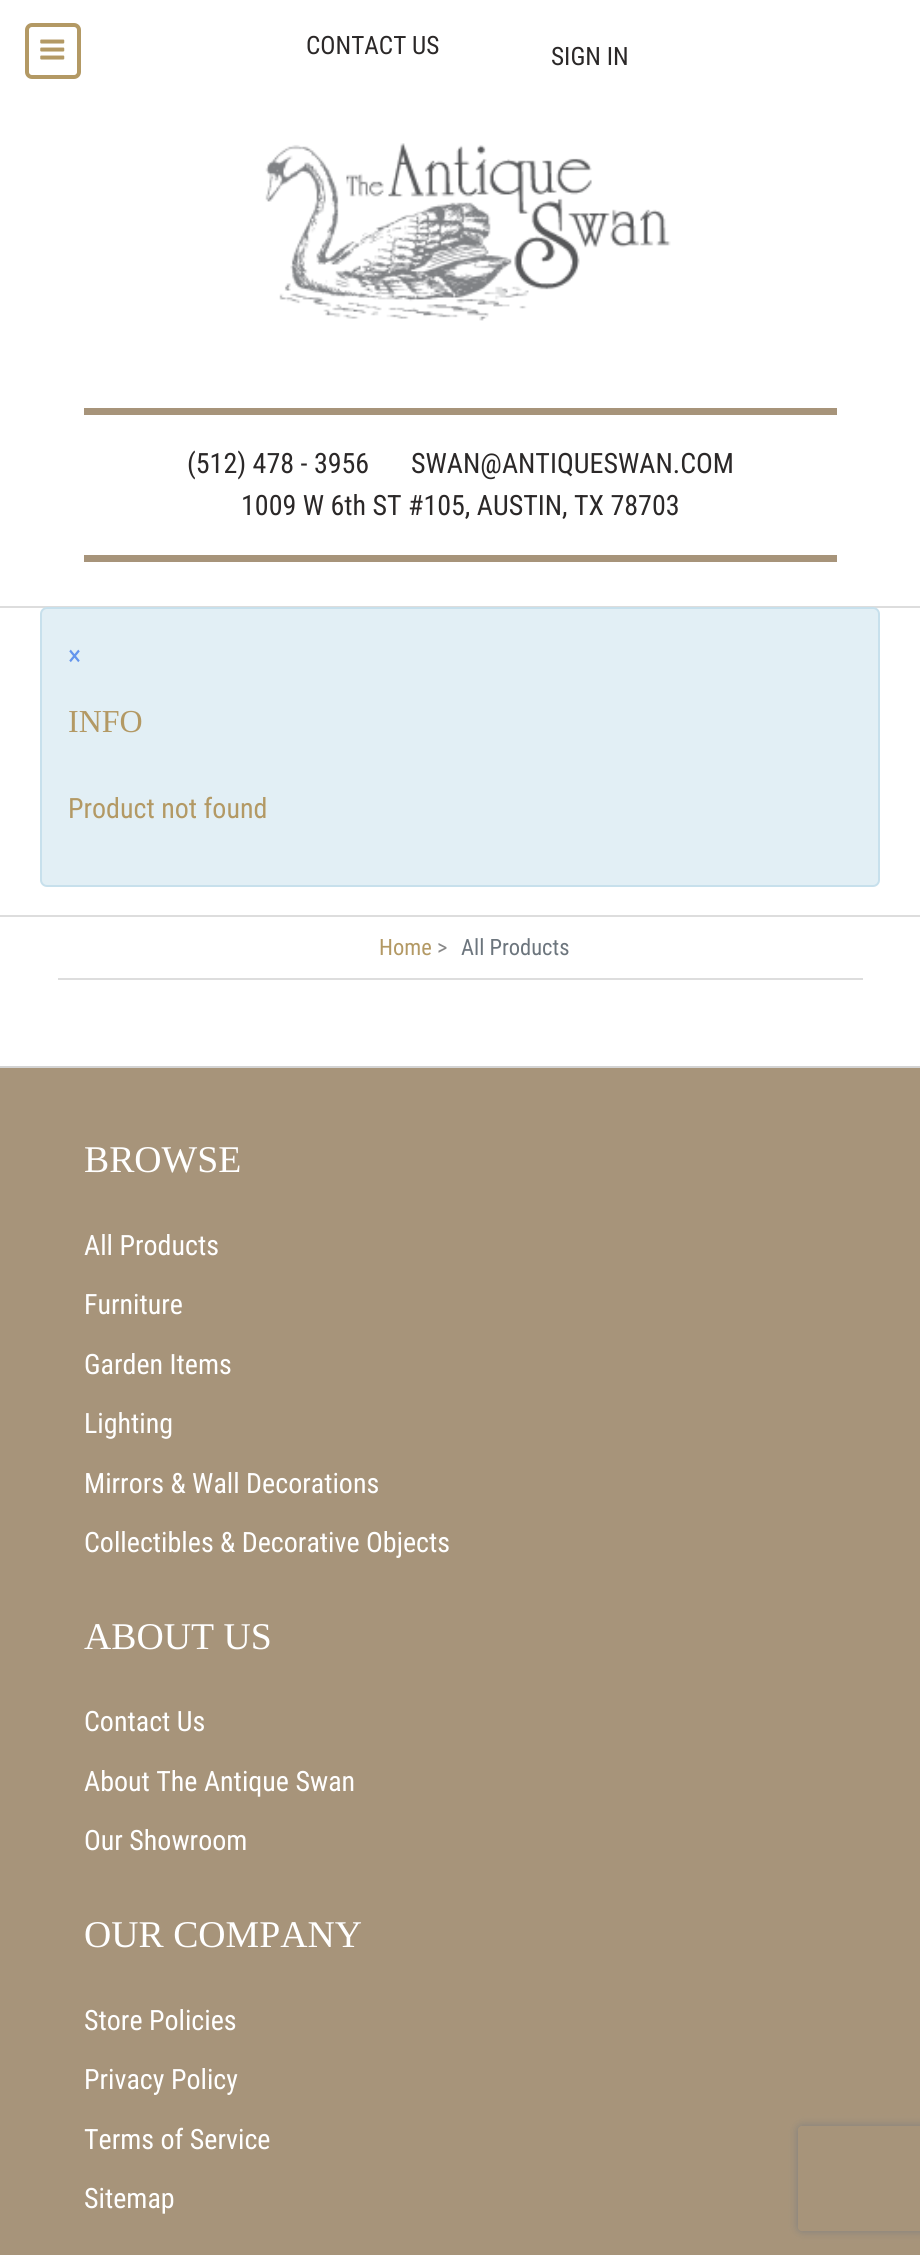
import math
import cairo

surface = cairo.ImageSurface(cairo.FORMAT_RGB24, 920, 2255)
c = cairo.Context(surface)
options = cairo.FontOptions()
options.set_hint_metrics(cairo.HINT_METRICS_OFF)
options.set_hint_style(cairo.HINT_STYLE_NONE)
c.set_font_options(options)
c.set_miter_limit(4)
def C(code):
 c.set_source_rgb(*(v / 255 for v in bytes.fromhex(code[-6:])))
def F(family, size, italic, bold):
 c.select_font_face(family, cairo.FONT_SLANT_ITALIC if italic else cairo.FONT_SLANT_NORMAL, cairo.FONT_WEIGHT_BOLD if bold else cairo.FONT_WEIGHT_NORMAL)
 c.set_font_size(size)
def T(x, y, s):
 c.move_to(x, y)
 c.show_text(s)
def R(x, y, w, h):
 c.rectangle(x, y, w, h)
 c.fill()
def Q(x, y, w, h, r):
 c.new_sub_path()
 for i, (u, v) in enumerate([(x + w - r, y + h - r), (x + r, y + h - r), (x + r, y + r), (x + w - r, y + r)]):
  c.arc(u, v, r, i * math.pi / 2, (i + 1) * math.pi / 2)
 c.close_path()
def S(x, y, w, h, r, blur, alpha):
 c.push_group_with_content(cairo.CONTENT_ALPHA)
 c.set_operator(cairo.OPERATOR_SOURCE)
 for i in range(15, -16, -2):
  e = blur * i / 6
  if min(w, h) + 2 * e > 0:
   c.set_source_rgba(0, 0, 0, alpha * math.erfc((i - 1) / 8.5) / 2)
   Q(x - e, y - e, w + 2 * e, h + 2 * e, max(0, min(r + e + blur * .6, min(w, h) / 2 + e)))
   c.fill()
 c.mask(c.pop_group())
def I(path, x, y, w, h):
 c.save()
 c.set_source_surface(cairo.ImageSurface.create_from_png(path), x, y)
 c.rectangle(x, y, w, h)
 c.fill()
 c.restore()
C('ffffff')
c.paint()
Q(27,25,52,52,5)
C('b39964')
c.set_line_width(4)
c.stroke()
I('1.png',40,39,25,21)
F('Roboto Condensed',25.25,0,0)
C('2b2828')
T(306,54,'CONTACT US')
T(551,65,'SIGN IN')
I('2.png',265,143,406,178)
C('a7947a')
R(84,408,753,7)
R(84,555,753,7)
F('Roboto Condensed',28,0,0)
C('2b2828')
T(187,473,'(512) 478 - 3956')
T(411,473,'SWAN@ANTIQUESWAN.COM')
T(241,515,'1009 W 6th ST #105, AUSTIN, TX 78703')
C('dddddd')
R(0,606,920,2)
R(0,915,920,2)
C('e2eff5')
Q(41,608,838,278,6)
c.fill_preserve()
C('c7e0ec')
c.set_line_width(2)
c.stroke()
C('6495ed')
T(68,665,'×')
F('Liberation Serif',32,0,0)
C('b39964')
T(68,732,'INFO')
F('Roboto Condensed',28,0,0)
T(68,818,'Product not found')
C('dddddd')
R(58,978,805,2)
F('Roboto Condensed',22.5,0,0)
C('b39964')
T(379,955,'Home')
C('888888')
T(437,955,'>')
C('6c757d')
T(461,955,'All Products')
C('d3d3d3')
R(0,1066,920,2)
C('a7947a')
R(0,1068,920,1187)
F('Liberation Serif',37.75,0,0)
C('ffffff')
T(84,1172,'BROWSE')
F('Roboto Condensed',28,0,0)
T(84,1255,'All Products')
T(84,1314,'Furniture')
T(84,1374,'Garden Items')
T(84,1433,'Lighting')
T(84,1493,'Mirrors & Wall Decorations')
T(84,1552,'Collectibles & Decorative Objects')
F('Liberation Serif',37.75,0,0)
T(84,1649,'ABOUT US')
F('Roboto Condensed',28,0,0)
T(84,1731,'Contact Us')
T(84,1791,'About The Antique Swan')
T(84,1850,'Our Showroom')
F('Liberation Serif',37.75,0,0)
T(84,1947,'OUR COMPANY')
F('Roboto Condensed',28,0,0)
T(84,2030,'Store Policies')
T(84,2089,'Privacy Policy')
T(84,2149,'Terms of Service')
T(84,2208,'Sitemap')
c.save()
c.set_fill_rule(cairo.FILL_RULE_EVEN_ODD)
c.new_path()
c.move_to(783,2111)
c.line_to(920,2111)
c.line_to(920,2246)
c.line_to(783,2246)
c.close_path()
c.move_to(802,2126)
c.line_to(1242,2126)
c.curve_to(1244,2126,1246,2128,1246,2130)
c.line_to(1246,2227)
c.curve_to(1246,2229,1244,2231,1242,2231)
c.line_to(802,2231)
c.curve_to(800,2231,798,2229,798,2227)
c.line_to(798,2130)
c.curve_to(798,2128,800,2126,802,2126)
c.close_path()
c.clip()
C('808080')
S(798,2126,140,105,4,4.5,1)
c.restore()
surface.write_to_png('o.png')
